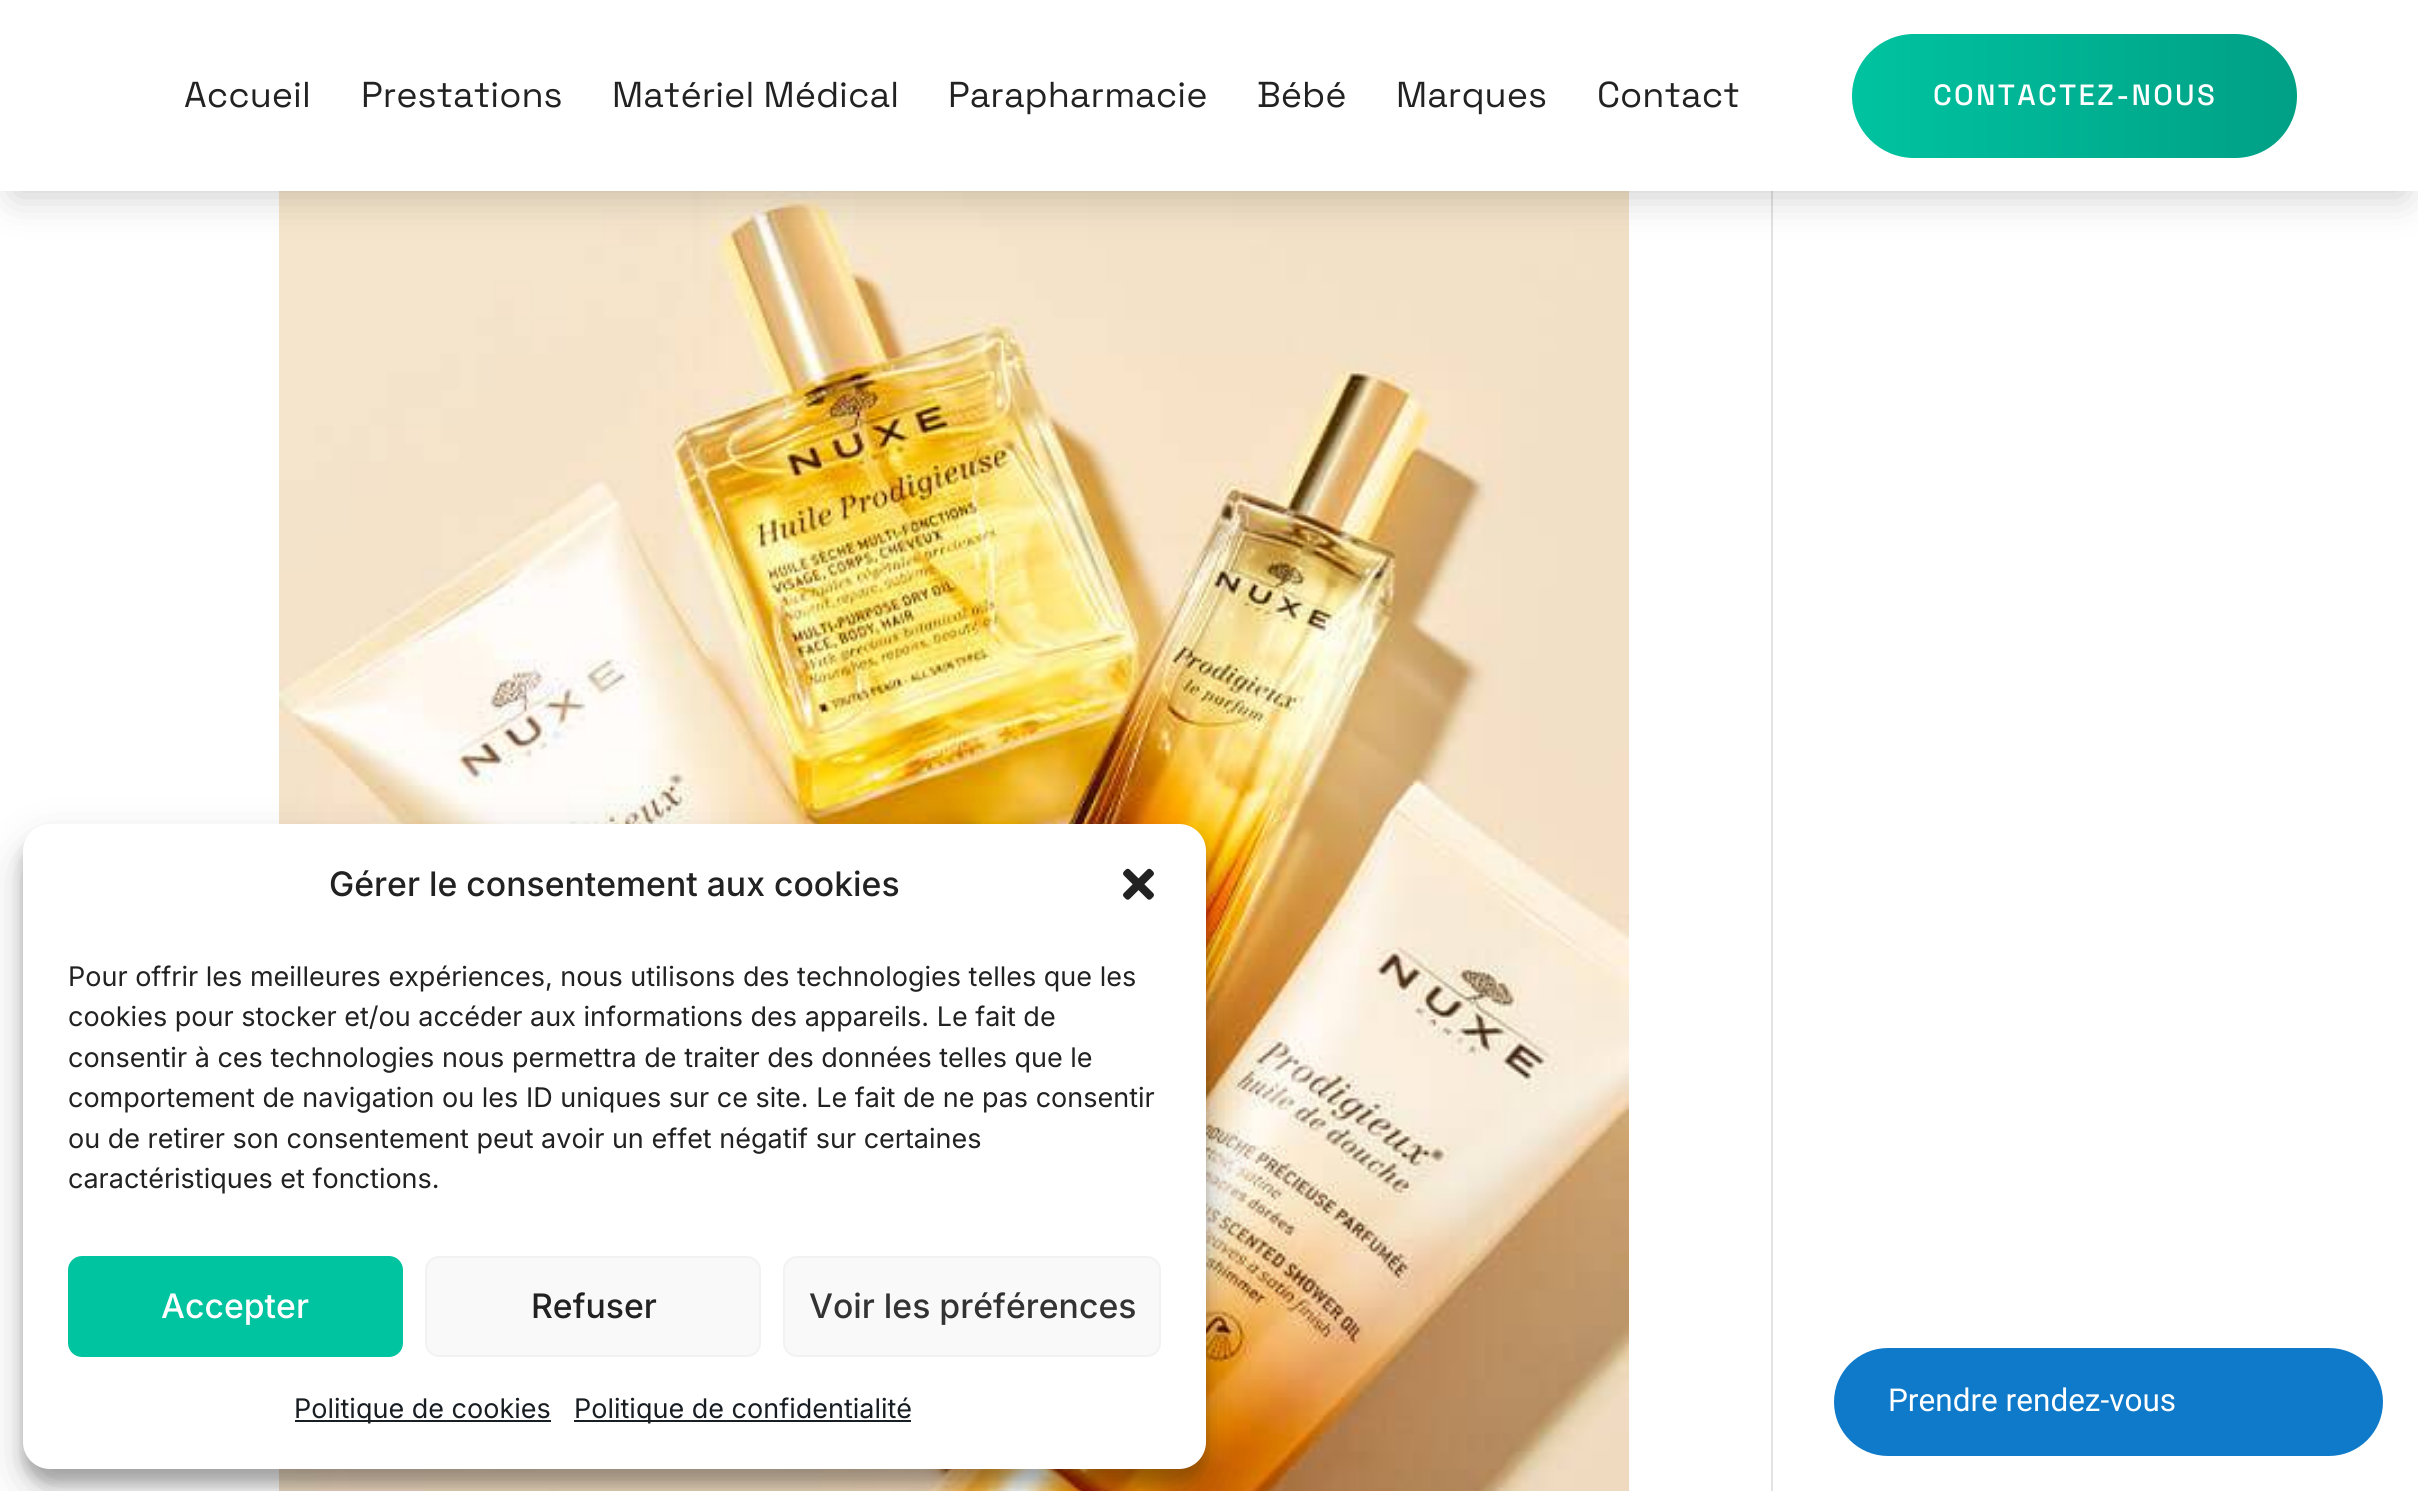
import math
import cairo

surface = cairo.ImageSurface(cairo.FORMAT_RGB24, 2418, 1491)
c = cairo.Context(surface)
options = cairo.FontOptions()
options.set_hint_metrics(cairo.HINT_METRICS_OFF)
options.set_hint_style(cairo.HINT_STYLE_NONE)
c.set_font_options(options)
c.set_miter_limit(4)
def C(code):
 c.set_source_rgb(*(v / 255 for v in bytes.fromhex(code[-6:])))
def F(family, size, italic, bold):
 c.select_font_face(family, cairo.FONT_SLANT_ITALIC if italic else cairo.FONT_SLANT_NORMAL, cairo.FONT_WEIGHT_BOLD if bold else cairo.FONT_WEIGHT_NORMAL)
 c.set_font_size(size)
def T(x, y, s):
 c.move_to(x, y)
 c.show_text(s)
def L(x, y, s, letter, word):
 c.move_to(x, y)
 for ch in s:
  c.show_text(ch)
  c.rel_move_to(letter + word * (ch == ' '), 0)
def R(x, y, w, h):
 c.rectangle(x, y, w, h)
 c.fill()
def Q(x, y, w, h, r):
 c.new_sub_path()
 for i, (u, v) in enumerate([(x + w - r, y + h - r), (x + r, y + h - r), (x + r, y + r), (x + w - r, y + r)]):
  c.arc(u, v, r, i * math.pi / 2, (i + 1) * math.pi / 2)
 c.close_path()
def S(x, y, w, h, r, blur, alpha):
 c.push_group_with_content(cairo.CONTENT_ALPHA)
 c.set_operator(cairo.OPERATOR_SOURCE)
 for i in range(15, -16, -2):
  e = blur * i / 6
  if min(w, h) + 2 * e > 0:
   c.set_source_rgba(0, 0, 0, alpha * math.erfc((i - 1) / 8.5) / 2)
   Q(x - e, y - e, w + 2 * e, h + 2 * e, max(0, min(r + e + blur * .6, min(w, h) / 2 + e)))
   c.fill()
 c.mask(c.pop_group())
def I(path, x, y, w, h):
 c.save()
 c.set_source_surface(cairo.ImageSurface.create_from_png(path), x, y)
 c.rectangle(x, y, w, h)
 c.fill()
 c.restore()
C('ffffff')
c.paint()
I('1.png',279,191,1350,1300)
C('e2e2e2')
R(1771,191,2,1300)
C('000000')
S(14,32,2391,164,0,20,.2)
C('ffffff')
R(0,0,2418,191)
F('Space Grotesk Light',36,0,0)
C('222222')
T(184,107,'Accueil')
T(361,107,'Prestations')
T(612,107,'Matériel Médical')
T(948,107,'Parapharmacie')
T(1257,107,'Bébé')
T(1396,107,'Marques')
T(1597,107,'Contact')
gradient = cairo.LinearGradient(1852,96,2297,96)
gradient.add_color_stop_rgba(0,0,0.765,0.627,1)
gradient.add_color_stop_rgba(1,0,0.627,0.522,1)
c.set_source(gradient)
Q(1852,34,445,124,62)
c.fill()
F('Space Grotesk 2 Light',29.25,0,0)
C('ffffff')
L(1933,105,'CONTACTEZ-NOUS',2.25,0)
C('000000')
S(23,837,1183,646,27,7,.23)
S(23,846,1183,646,27,22.5,.19)
C('ffffff')
Q(23,824,1183,645,27)
c.fill()
F('Inter Medium',33.75,0,0)
C('222222')
T(329,896,'Gérer le consentement aux cookies')
I('2.png',1123,868,31,32)
F('Inter',27,0,0)
T(68,986,'Pour offrir les meilleures expériences, nous utilisons des technologies telles que les')
T(68,1026,'cookies pour stocker et/ou accéder aux informations des appareils. Le fait de')
T(68,1067,'consentir à ces technologies nous permettra de traiter des données telles que le')
T(68,1107,'comportement de navigation ou les ID uniques sur ce site. Le fait de ne pas consentir')
T(68,1148,'ou de retirer son consentement peut avoir un effet négatif sur certaines')
T(68,1188,'caractéristiques et fonctions.')
C('00c3a0')
Q(69,1257,333,99,13)
c.fill_preserve()
c.stroke()
F('Inter Medium',33.75,0,0)
C('ffffff')
T(161,1318,'Accepter')
C('f9f9f9')
Q(426,1257,334,99,13)
c.fill_preserve()
C('f2f2f2')
c.stroke()
C('222222')
T(531,1318,'Refuser')
C('f9f9f9')
Q(784,1257,376,99,13)
c.fill_preserve()
C('f2f2f2')
c.stroke()
C('333333')
T(809,1318,'Voir les préférences')
C('191e23')
R(295,1420,256,2)
F('Inter',27,0,0)
T(294,1418,'Politique de cookies')
R(574,1420,337,2)
T(574,1418,'Politique de confidentialité')
C('107aca')
Q(1834,1348,549,108,54)
c.fill()
F('Roboto',31.5,0,0)
C('ffffff')
T(1888,1411,'Prendre rendez-vous')
surface.write_to_png('o.png')
